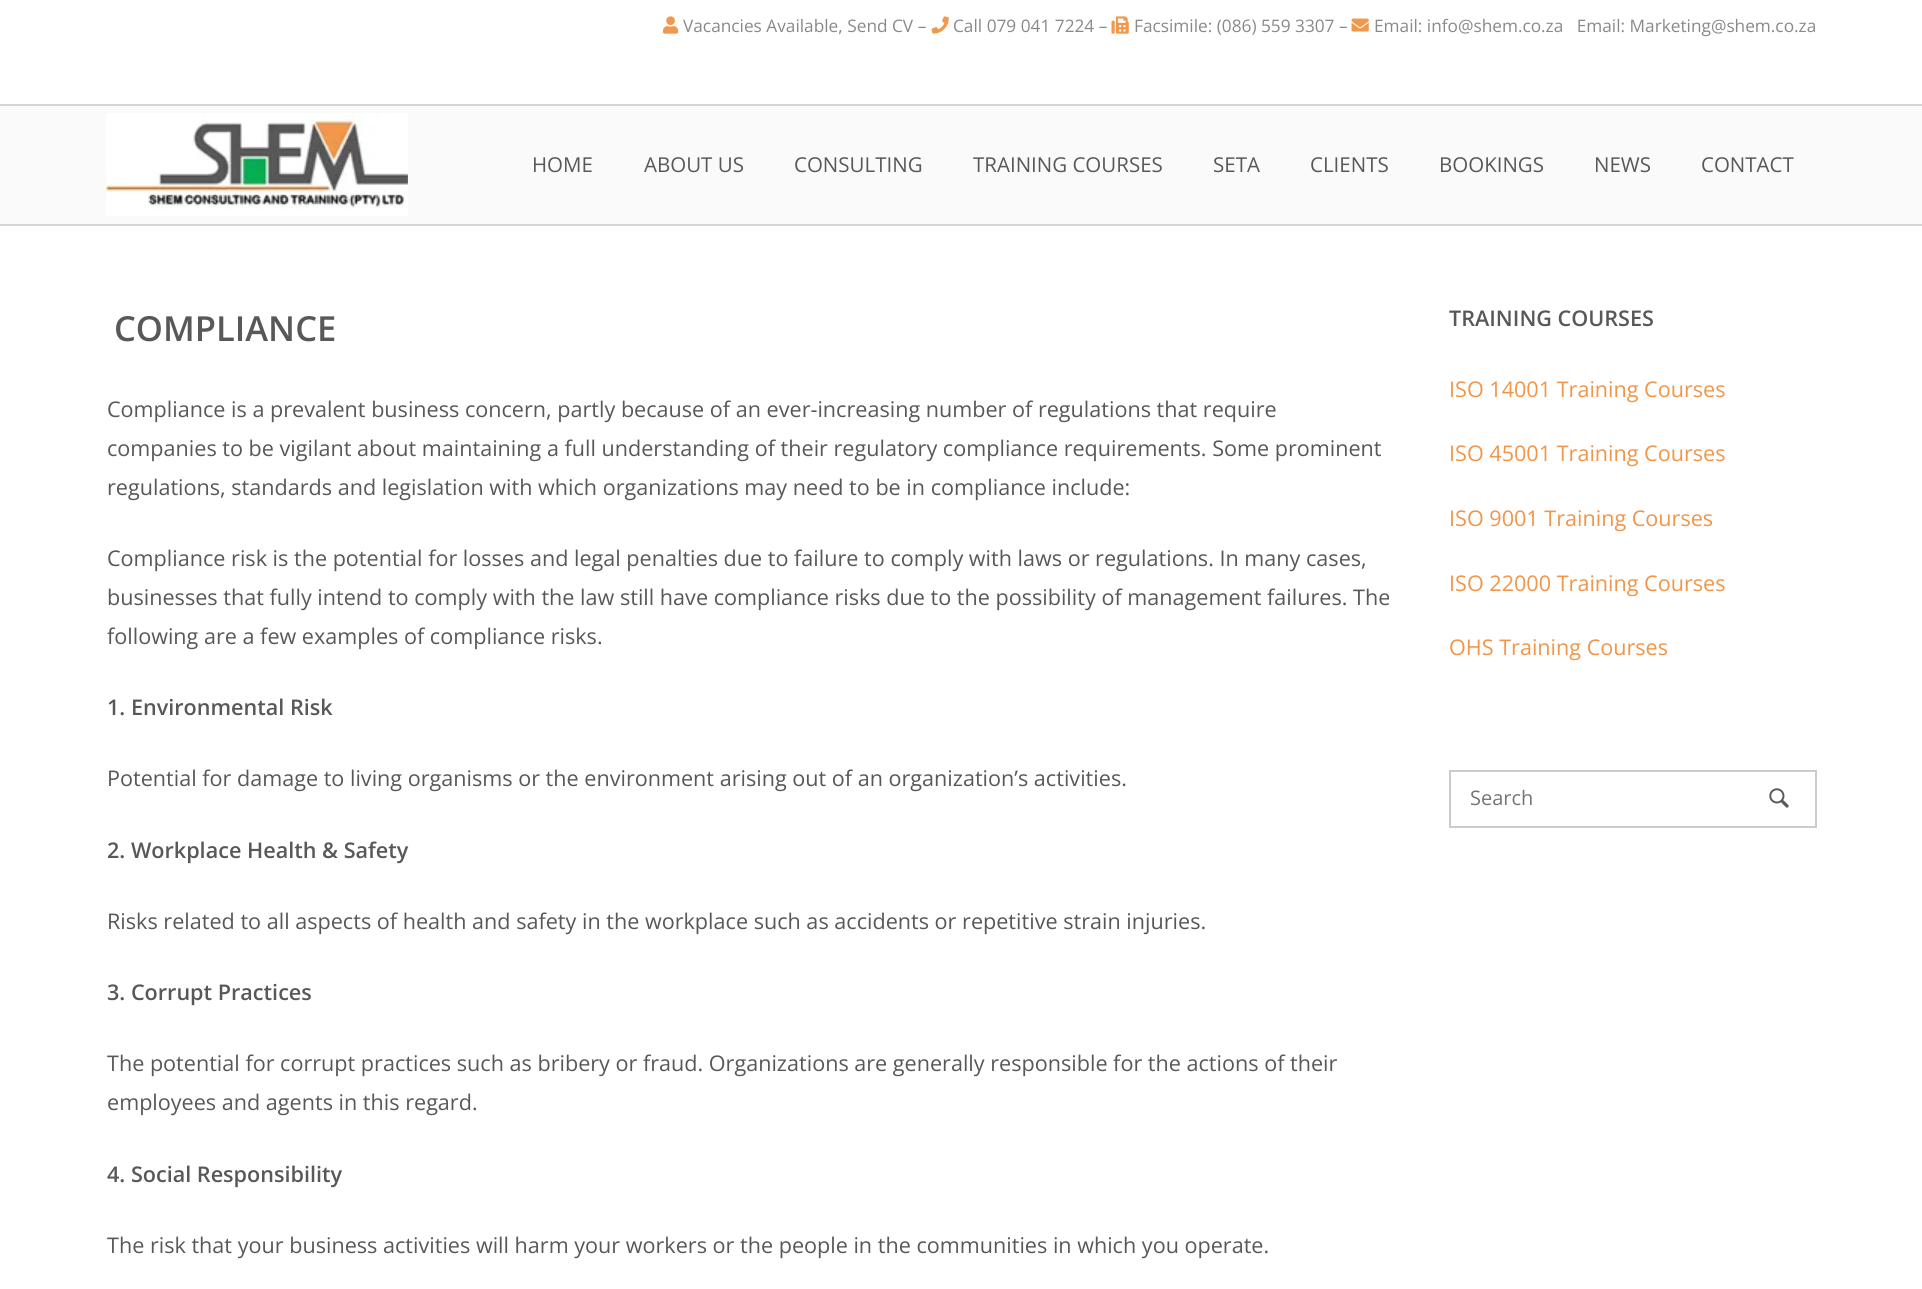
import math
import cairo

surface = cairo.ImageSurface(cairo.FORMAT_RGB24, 1922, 1289)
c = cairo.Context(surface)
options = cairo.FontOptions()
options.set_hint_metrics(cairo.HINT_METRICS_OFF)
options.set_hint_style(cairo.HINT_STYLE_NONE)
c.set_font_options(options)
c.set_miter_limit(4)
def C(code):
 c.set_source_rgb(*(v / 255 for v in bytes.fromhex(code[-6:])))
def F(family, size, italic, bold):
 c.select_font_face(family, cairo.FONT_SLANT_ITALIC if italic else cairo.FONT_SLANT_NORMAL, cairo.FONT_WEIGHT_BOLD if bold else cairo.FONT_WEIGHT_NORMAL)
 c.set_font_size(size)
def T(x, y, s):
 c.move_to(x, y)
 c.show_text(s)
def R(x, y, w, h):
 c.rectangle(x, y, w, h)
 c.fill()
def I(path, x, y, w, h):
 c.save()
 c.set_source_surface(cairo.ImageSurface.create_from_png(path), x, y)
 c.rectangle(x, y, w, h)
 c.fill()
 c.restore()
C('ffffff')
c.paint()
C('d4d4d4')
R(0,104,1922,2)
I('1.png',663,16,16,18)
F('Open Sans',17.25,0,0)
C('898989')
T(683,32,'Vacancies Available, Send CV –')
I('2.png',931,16,18,18)
T(953,32,'Call 079 041 7224 –')
I('3.png',1111,16,18,18)
T(1134,32,'Facsimile: (086) 559 3307 –')
I('4.png',1351,18,18,14)
T(1374,32,'Email: info@shem.co.za   Email: Marketing@shem.co.za')
C('fafafa')
R(0,106,1922,118)
C('d4d4d4')
R(0,224,1922,2)
I('5.png',106,113,302,103)
F('Open Sans',20.5,0,0)
C('585858')
T(532,172,'HOME')
T(644,172,'ABOUT US')
T(794,172,'CONSULTING')
T(973,172,'TRAINING COURSES')
T(1213,172,'SETA')
T(1310,172,'CLIENTS')
T(1439,172,'BOOKINGS')
T(1594,172,'NEWS')
T(1701,172,'CONTACT')
F('Open Sans SemiBold',34.5,0,0)
T(114,341,'COMPLIANCE')
F('Open Sans',21.6,0,0)
T(107,417,'Compliance is a prevalent business concern, partly because of an ever-increasing number of regulations that require')
T(107,456,'companies to be vigilant about maintaining a full understanding of their regulatory compliance requirements. Some prominent')
T(107,495,'regulations, standards and legislation with which organizations may need to be in compliance include:')
T(107,566,'Compliance risk is the potential for losses and legal penalties due to failure to comply with laws or regulations. In many cases,')
T(107,605,'businesses that fully intend to comply with the law still have compliance risks due to the possibility of management failures. The')
T(107,644,'following are a few examples of compliance risks.')
F('Open Sans SemiBold',21.6,0,0)
T(107,715,'1. Environmental Risk')
F('Open Sans',21.6,0,0)
T(107,786,'Potential for damage to living organisms or the environment arising out of an organization’s activities.')
F('Open Sans SemiBold',21.6,0,0)
T(107,858,'2. Workplace Health & Safety')
F('Open Sans',21.6,0,0)
T(107,929,'Risks related to all aspects of health and safety in the workplace such as accidents or repetitive strain injuries.')
F('Open Sans SemiBold',21.6,0,0)
T(107,1000,'3. Corrupt Practices')
F('Open Sans',21.6,0,0)
T(107,1071,'The potential for corrupt practices such as bribery or fraud. Organizations are generally responsible for the actions of their')
T(107,1110,'employees and agents in this regard.')
F('Open Sans SemiBold',21.6,0,0)
T(107,1182,'4. Social Responsibility')
F('Open Sans',21.6,0,0)
T(107,1253,'The risk that your business activities will harm your workers or the people in the communities in which you operate.')
F('Open Sans SemiBold',21.6,0,0)
T(1449,326,'TRAINING COURSES')
F('Open Sans',21.6,0,0)
C('f19548')
T(1449,397,'ISO 14001 Training Courses')
T(1449,461,'ISO 45001 Training Courses')
T(1449,526,'ISO 9001 Training Courses')
T(1449,591,'ISO 22000 Training Courses')
T(1449,655,'OHS Training Courses')
c.rectangle(1450,771,366,56)
C('cccccc')
c.stroke()
F('Open Sans',20,0,0)
C('757575')
T(1470,805,'Search')
I('6.png',1769,788,20,20)
surface.write_to_png('o.png')
